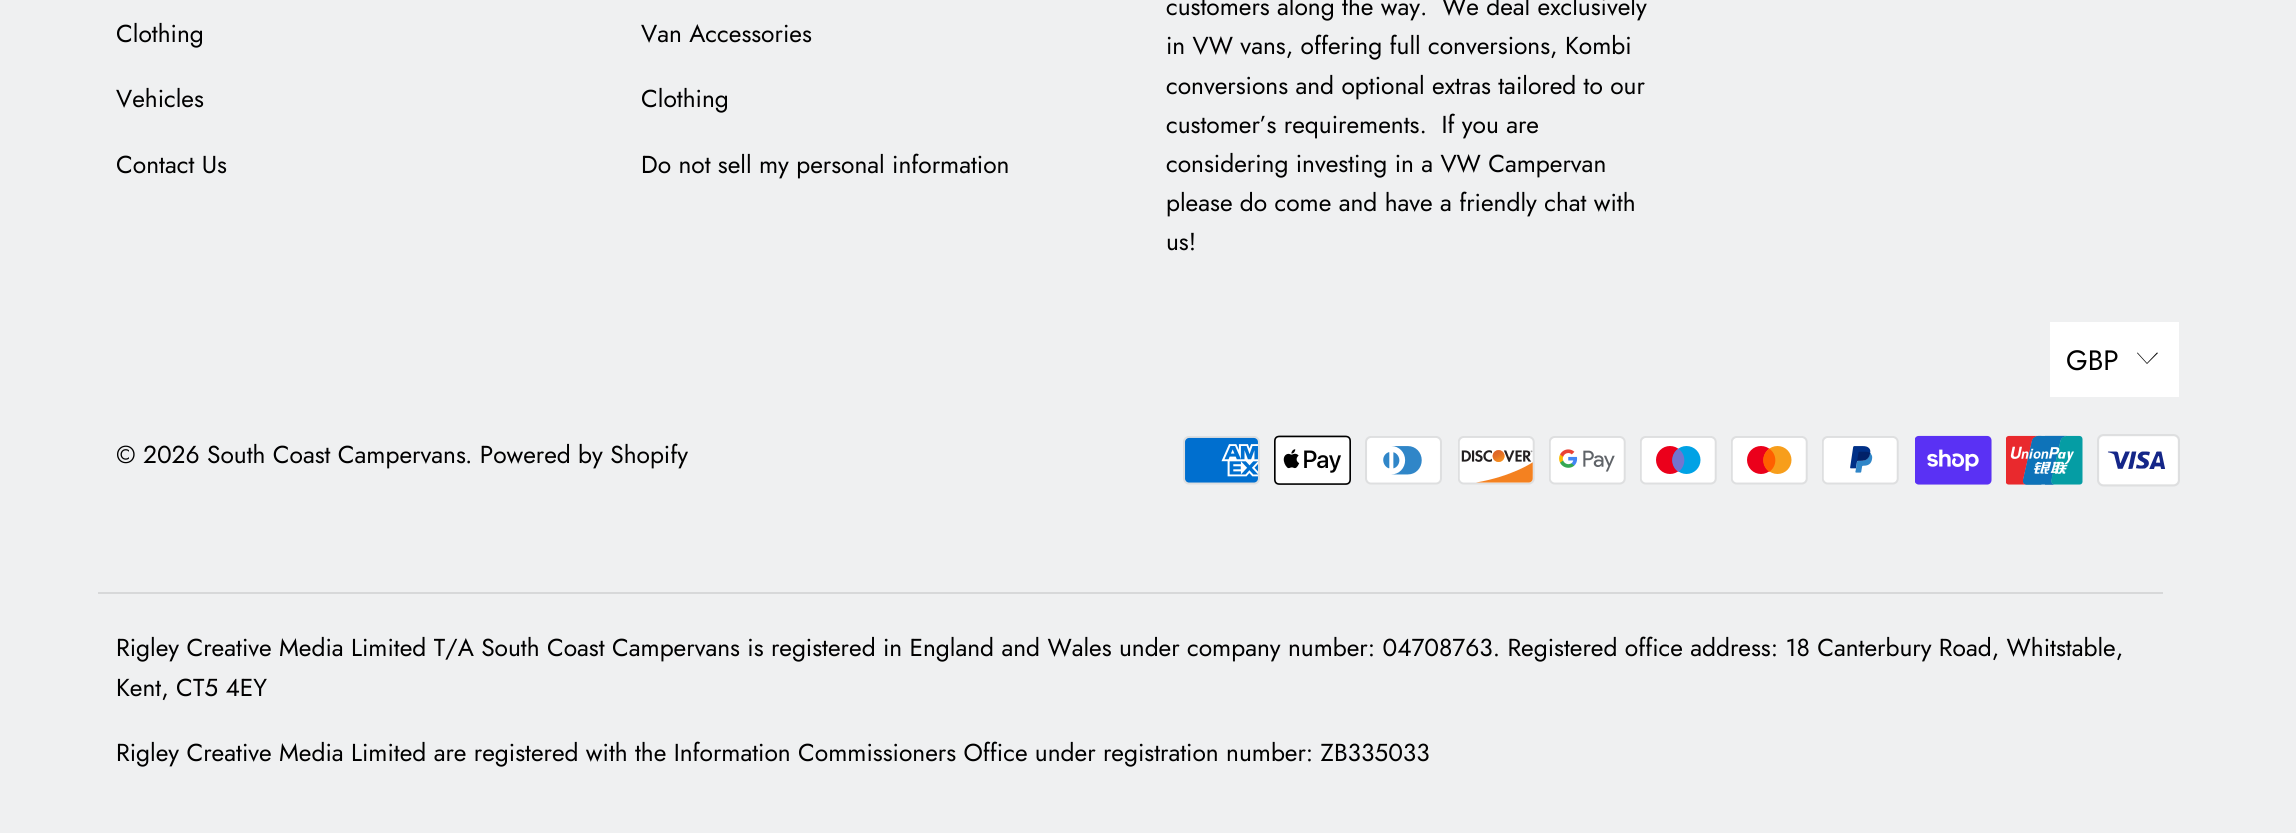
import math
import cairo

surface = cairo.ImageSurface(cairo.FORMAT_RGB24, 2296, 833)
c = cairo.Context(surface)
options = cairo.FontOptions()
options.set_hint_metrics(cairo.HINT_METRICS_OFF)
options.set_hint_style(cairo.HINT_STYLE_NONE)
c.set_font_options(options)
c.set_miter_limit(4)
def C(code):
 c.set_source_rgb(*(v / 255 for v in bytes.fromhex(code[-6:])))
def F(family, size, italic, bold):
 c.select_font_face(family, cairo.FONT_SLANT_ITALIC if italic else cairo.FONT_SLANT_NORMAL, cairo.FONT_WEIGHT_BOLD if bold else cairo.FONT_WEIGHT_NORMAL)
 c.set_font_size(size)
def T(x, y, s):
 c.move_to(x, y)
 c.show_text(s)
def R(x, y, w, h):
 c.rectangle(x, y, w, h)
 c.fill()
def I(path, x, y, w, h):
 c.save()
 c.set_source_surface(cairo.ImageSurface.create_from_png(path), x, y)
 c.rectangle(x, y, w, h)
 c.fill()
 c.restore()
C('eff0f1')
c.paint()
F('Jost',24.5,0,0)
C('000000')
T(116,42,'Clothing')
T(116,107,'Vehicles')
T(116,173,'Contact Us')
T(641,42,'Van Accessories')
T(641,107,'Clothing')
T(641,173,'Do not sell my personal information')
T(1166,15,'customers along the way.  We deal exclusively')
T(1166,54,'in VW vans, offering full conversions, Kombi')
T(1166,94,'conversions and optional extras tailored to our')
T(1166,133,'customer’s requirements.  If you are')
T(1166,172,'considering investing in a VW Campervan')
T(1166,211,'please do come and have a friendly chat with')
T(1166,250,'us!')
C('ffffff')
R(2050,322,129,75)
F('Jost',28,0,0)
C('000000')
T(2066,370,'GBP')
c.new_path()
c.move_to(2147,364)
c.line_to(2137,353)
c.line_to(2137.5,352.5)
c.line_to(2147,363)
c.line_to(2157,352.5)
c.line_to(2158,353)
c.close_path()
c.fill()
F('Jost',24.5,0,0)
T(116,463,'© 2026 South Coast Campervans')
T(465,463,'. Powered by Shopify')
I('1.png',1183,436,77,49)
I('2.png',1274,435,77,50)
I('3.png',1365,436,77,49)
I('4.png',1458,436,77,49)
I('5.png',1549,436,77,49)
I('6.png',1640,436,77,49)
I('7.png',1731,436,77,49)
I('8.png',1822,436,77,49)
I('9.png',1915,435,77,50)
I('10.png',2006,435,77,50)
I('11.png',2097,434,83,53)
C('d7d8d9')
R(98,592,2065,2)
C('000000')
T(116,656,'Rigley Creative Media Limited T/A South Coast Campervans is registered in England and Wales under company number: 04708763. Registered office address: 18 Canterbury Road, Whitstable,')
T(116,696,'Kent, CT5 4EY')
T(116,761,'Rigley Creative Media Limited are registered with the Information Commissioners Office under registration number: ZB335033')
surface.write_to_png('o.png')
